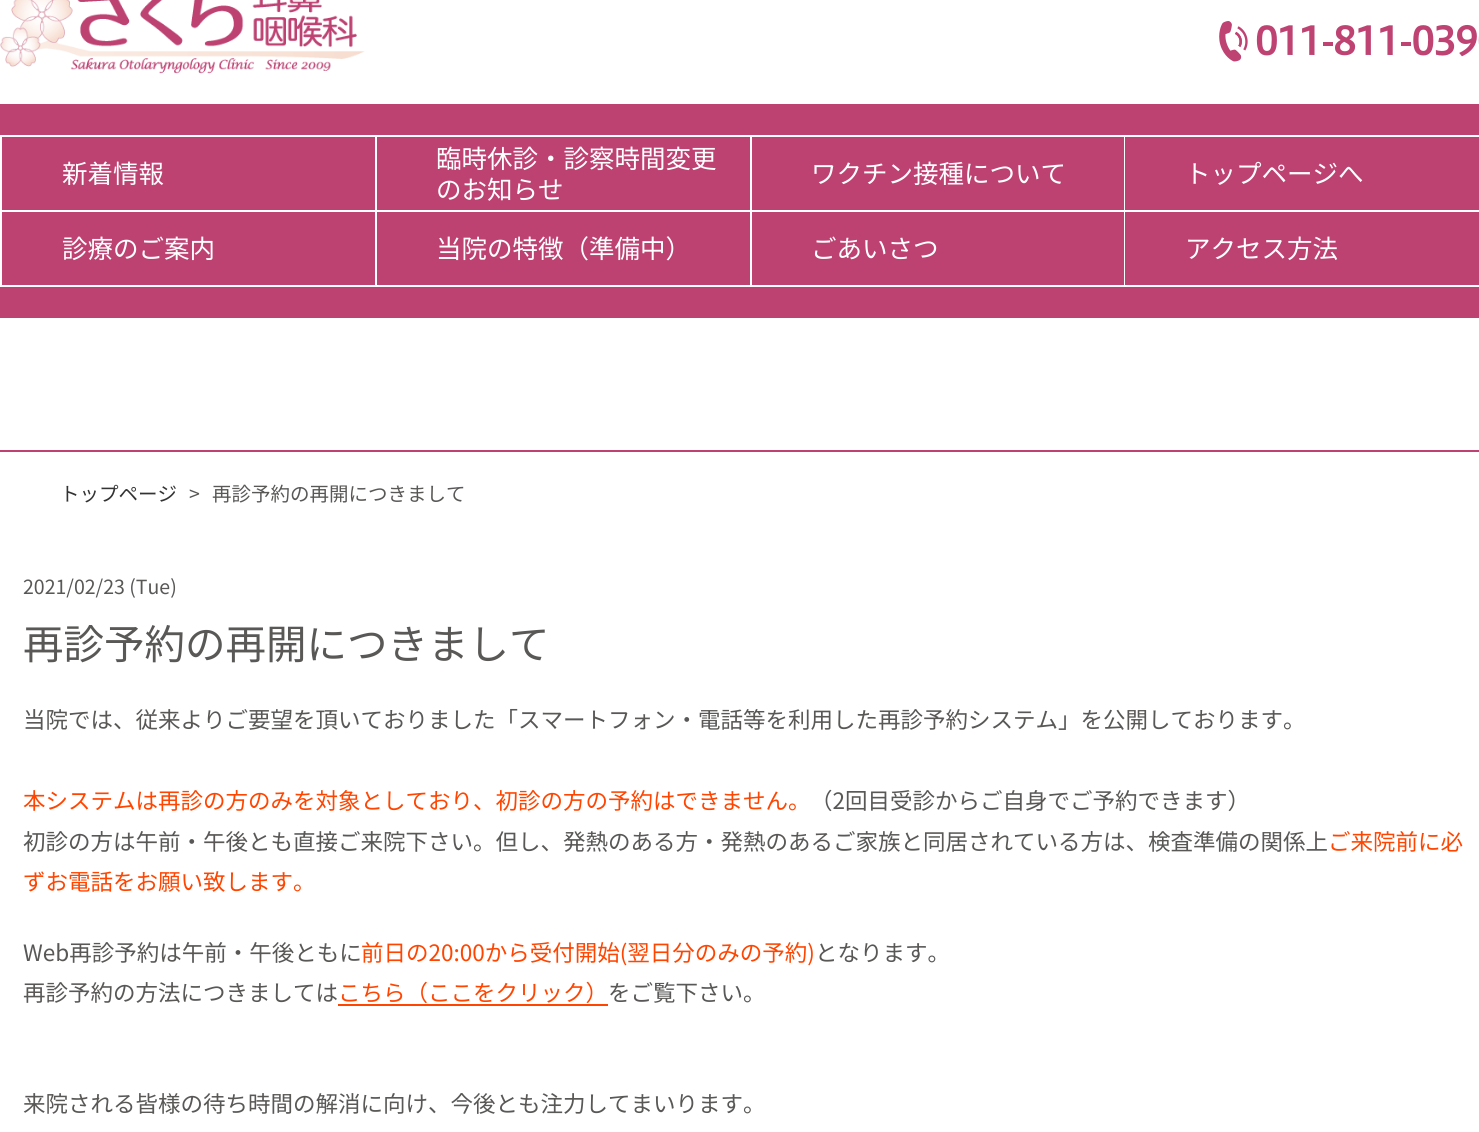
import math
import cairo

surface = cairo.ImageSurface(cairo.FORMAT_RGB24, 1479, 1132)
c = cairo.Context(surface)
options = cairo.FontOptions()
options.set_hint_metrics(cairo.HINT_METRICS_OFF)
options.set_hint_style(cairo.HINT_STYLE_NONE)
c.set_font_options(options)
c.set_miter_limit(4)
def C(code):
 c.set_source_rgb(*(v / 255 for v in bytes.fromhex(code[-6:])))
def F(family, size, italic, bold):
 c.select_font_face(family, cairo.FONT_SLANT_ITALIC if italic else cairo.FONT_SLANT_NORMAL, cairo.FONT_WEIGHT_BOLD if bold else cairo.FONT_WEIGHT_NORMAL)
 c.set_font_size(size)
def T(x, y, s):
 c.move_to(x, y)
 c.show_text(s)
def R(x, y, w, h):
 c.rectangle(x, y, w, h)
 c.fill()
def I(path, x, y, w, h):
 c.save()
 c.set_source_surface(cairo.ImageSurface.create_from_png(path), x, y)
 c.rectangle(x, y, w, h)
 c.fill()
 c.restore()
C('ffffff')
c.paint()
I('1.png',0,0,365,74)
I('2.png',1219,21,260,41)
C('bd4272')
R(0,104,1479,214)
C('ffffff')
R(0,135,1479,2)
R(0,135,2,152)
R(375,137,2,150)
R(2,210,375,2)
F('Noto Sans JP Thin',25.5,0,0)
T(62,183,'新着情報')
R(750,137,2,150)
R(377,210,375,2)
T(436,168,'臨時休診・診察時間変更')
T(436,199,'のお知らせ')
R(1124,137,1,150)
R(752,210,727,2)
T(811,183,'ワクチン接種について')
T(1185,183,'トップページへ')
R(2,285,1477,2)
T(62,258,'診療のご案内')
T(436,258,'当院の特徴（準備中）')
T(811,258,'ごあいさつ')
T(1185,258,'アクセス方法')
C('bd4272')
R(0,450,1479,2)
F('Noto Sans JP Thin',19.5,0,0)
C('333333')
T(60,501,'トップページ')
C('595857')
T(189,501,'>')
T(212,501,'再診予約の再開につきまして')
T(23,594,'2021/02/23 (Tue)')
F('Noto Sans JP Thin',40.5,0,0)
T(23,659,'再診予約の再開につきまして')
F('Noto Sans JP Thin',22.5,0,0)
T(23,728,'当院では、従来よりご要望を頂いておりました「スマートフォン・電話等を利用した再診予約システム」を公開しております。')
C('ff4500')
T(23,809,'本システムは再診の方のみを対象としており、初診の方の予約はできません。')
C('595857')
T(810,809,'（2回目受診からご自身でご予約できます）')
T(23,850,'初診の方は午前・午後とも直接ご来院下さい。但し、発熱のある方・発熱のあるご家族と同居されている方は、検査準備の関係上')
C('ff4500')
T(1328,850,'ご来院前に必')
T(23,890,'ずお電話をお願い致します。')
C('595857')
T(23,961,'Web再診予約は午前・午後ともに')
C('ff4500')
T(361,961,'前日の20:00から受付開始(翌日分のみの予約)')
C('595857')
T(815,961,'となります。')
T(23,1001,'再診予約の方法につきましては')
C('ff4500')
T(338,1001,'こちら（ここをクリック）')
R(338,1004,270,2)
C('595857')
T(608,1001,'をご覧下さい。')
T(23,1112,'来院される皆様の待ち時間の解消に向け、今後とも注力してまいります。')
surface.write_to_png('o.png')
